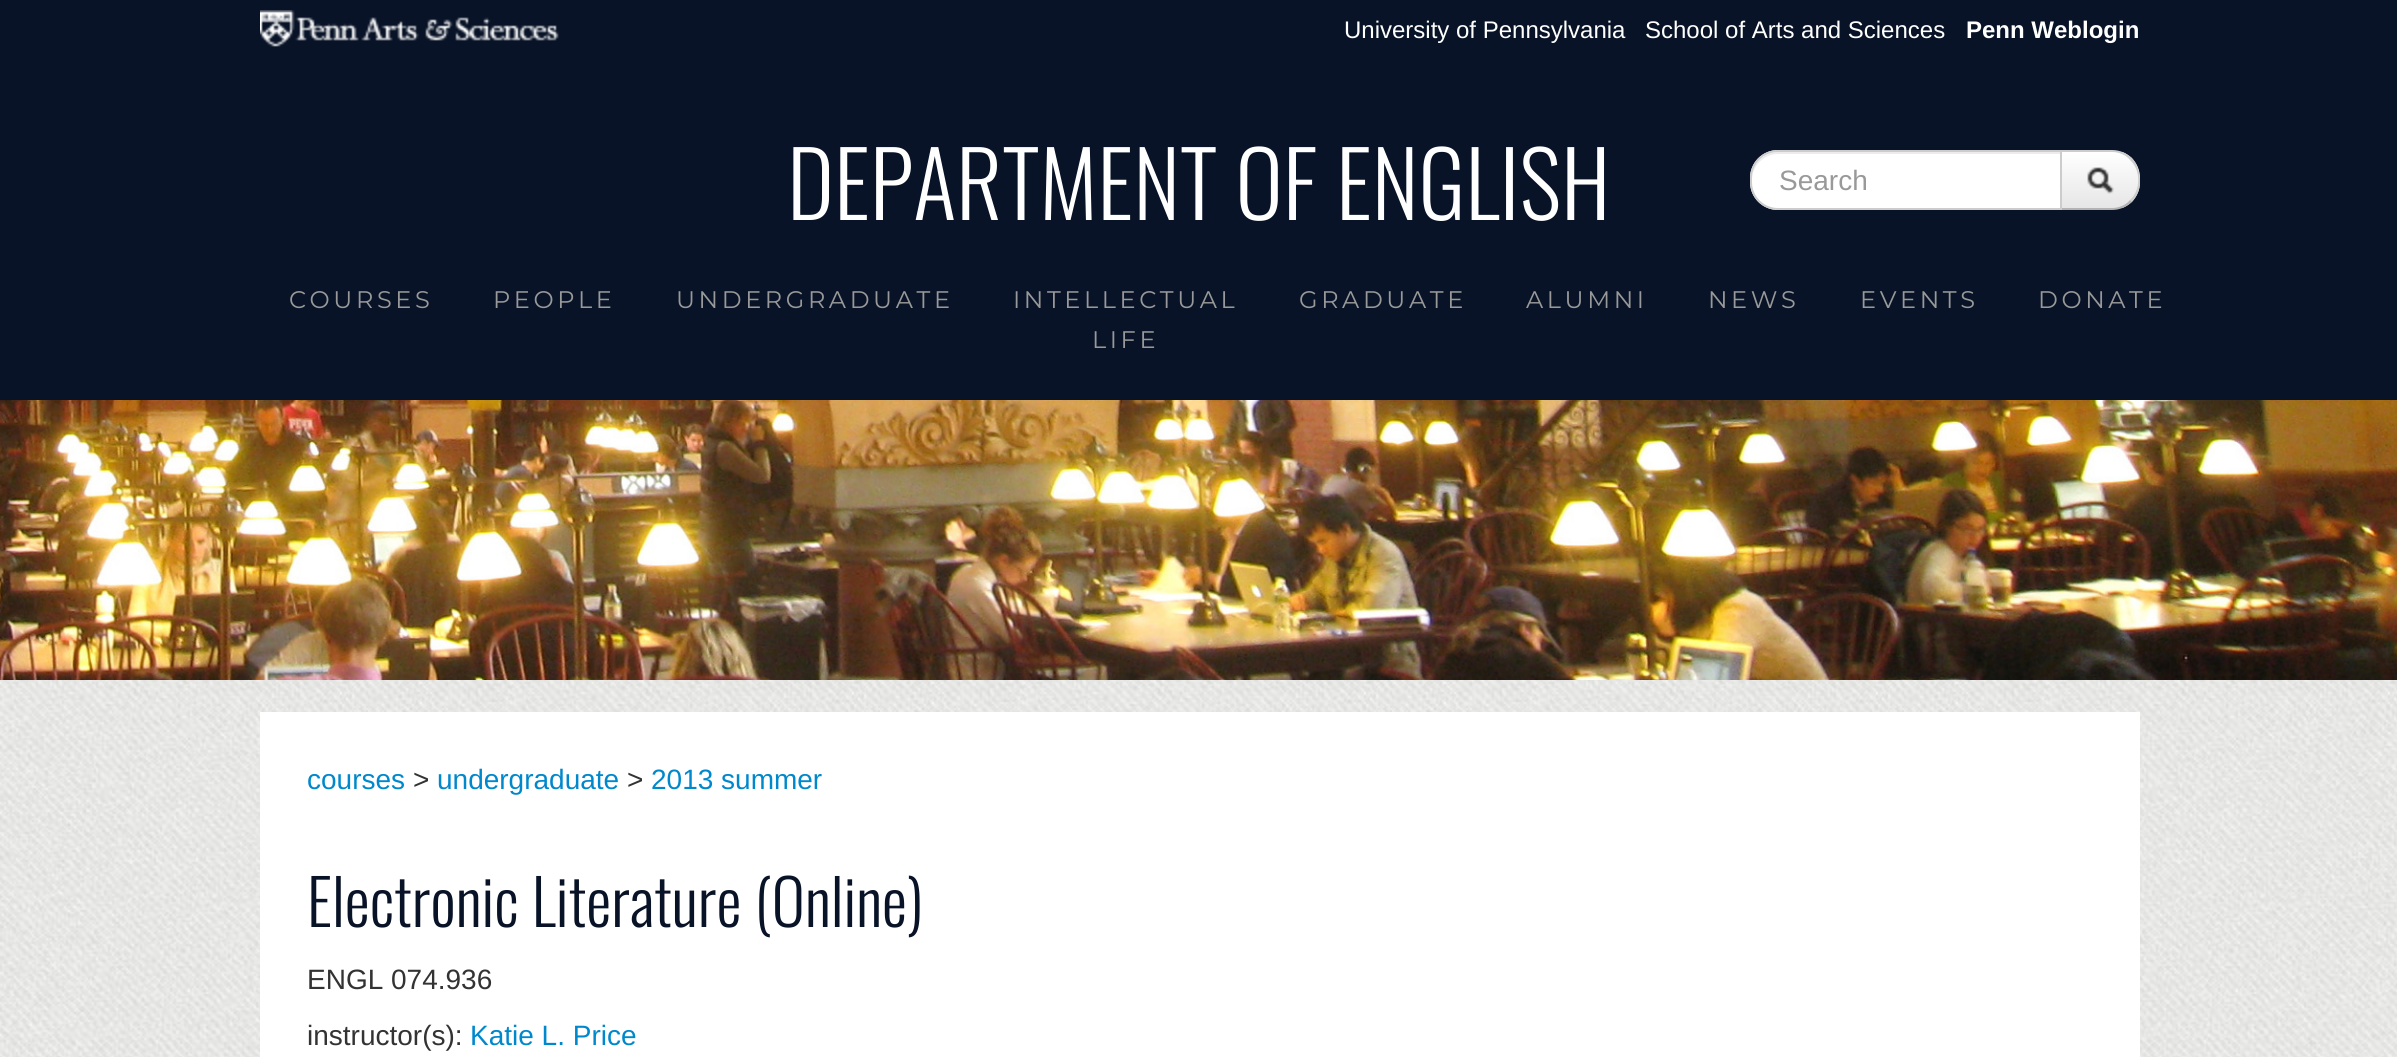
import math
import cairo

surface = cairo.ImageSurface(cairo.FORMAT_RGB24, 2397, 1057)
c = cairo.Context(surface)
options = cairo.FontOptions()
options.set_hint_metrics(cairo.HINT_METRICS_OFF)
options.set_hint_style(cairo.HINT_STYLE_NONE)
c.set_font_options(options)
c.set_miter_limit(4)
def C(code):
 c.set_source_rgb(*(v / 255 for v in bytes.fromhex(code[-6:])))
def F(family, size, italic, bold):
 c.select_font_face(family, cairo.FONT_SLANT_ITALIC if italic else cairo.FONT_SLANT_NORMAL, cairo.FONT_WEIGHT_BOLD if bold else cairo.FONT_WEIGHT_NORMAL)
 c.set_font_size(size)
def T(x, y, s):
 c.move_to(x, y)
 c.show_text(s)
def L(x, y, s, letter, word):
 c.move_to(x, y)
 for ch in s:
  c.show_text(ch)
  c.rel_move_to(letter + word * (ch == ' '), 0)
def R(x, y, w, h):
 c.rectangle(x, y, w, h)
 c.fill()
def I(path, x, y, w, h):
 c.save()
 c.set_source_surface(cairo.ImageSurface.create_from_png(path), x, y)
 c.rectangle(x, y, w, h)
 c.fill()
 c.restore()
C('ffffff')
c.paint()
I('1.png',0,680,2397,377)
C('081327')
R(0,0,2397,400)
I('2.png',260,10,299,37)
F('Liberation Sans',24,0,0)
C('ffffff')
T(1344,38,'University of Pennsylvania')
T(1645,38,'School of Arts and Sciences')
F('Liberation Sans',24,0,1)
T(1966,38,'Penn Weblogin')
F('Oswald Light',90,0,0)
T(787,220,'DEPARTMENT OF ENGLISH')
c.save()
c.new_path()
c.move_to(2060,150)
c.line_to(2112,150)
c.curve_to(2127.5,150,2140,162.5,2140,178)
c.line_to(2140,182)
c.curve_to(2140,197.5,2127.5,210,2112,210)
c.line_to(2060,210)
c.close_path()
c.clip()
gradient = cairo.LinearGradient(2100,152,2100,208)
gradient.add_color_stop_rgba(0,1,1,1,1)
gradient.add_color_stop_rgba(1,0.902,0.902,0.902,1)
c.set_source(gradient)
R(2062,152,78,56)
c.restore()
C('cccccc')
c.new_path()
c.move_to(2060,150)
c.line_to(2062,152)
c.line_to(2112,152)
c.curve_to(2119,152,2126,155,2130,160)
c.line_to(2132,158)
c.curve_to(2126,153,2120,150,2112,150)
c.close_path()
c.fill()
c.new_path()
c.move_to(2140,182)
c.curve_to(2140,173,2138,165,2132,158)
c.line_to(2130,160)
c.curve_to(2141,170,2141,190,2130,200)
c.line_to(2132,202)
c.curve_to(2137,196,2140,190,2140,182)
c.close_path()
c.fill()
C('b3b3b3')
c.new_path()
c.move_to(2112,210)
c.curve_to(2120,210,2126,207,2132,202)
c.line_to(2130,200)
c.curve_to(2126,205,2119,208,2112,208)
c.line_to(2062,208)
c.line_to(2060,210)
c.close_path()
c.fill()
C('ffffff')
c.new_path()
c.move_to(1778,150)
c.line_to(2062,150)
c.line_to(2062,210)
c.line_to(1778,210)
c.curve_to(1762.5,210,1750,197.5,1750,182)
c.line_to(1750,178)
c.curve_to(1750,162.5,1762.5,150,1778,150)
c.close_path()
c.fill()
C('ececec')
c.new_path()
c.move_to(1778,154)
c.line_to(2060,154)
c.line_to(2060,152)
c.line_to(1778,152)
c.curve_to(1764,152,1752,164,1752,178)
c.line_to(1752,180)
c.curve_to(1752,166,1764,154,1778,154)
c.close_path()
c.fill()
c.new_path()
c.move_to(1778,151)
c.line_to(2061,151)
c.line_to(2061,209)
c.line_to(1778,209)
c.curve_to(1763,209,1751,197,1751,182)
c.line_to(1751,178)
c.curve_to(1751,163,1763,151,1778,151)
c.close_path()
C('cccccc')
c.stroke()
F('Liberation Sans',28,0,0)
C('999999')
T(1779,190,'Search')
I('3.png',2087,167,27,27)
F('Montserrat Thin',24,0,0)
L(289,308,'COURSES',3.6,0)
L(493,308,'PEOPLE',3.6,0)
L(676,308,'UNDERGRADUATE',3.6,0)
L(1013,308,'INTELLECTUAL',3.6,0)
L(1092,348,'LIFE',3.6,0)
L(1299,308,'GRADUATE',3.6,0)
L(1526,308,'ALUMNI',3.6,0)
L(1708,308,'NEWS',3.6,0)
L(1860,308,'EVENTS',3.6,0)
L(2038,308,'DONATE',3.6,0)
I('4.png',0,400,2397,280)
C('ffffff')
R(260,712,1880,345)
F('Liberation Sans',28,0,0)
C('0088cc')
T(307,789,'courses')
C('333333')
T(413,789,'>')
C('0088cc')
T(437,789,'undergraduate')
C('333333')
T(627,789,'>')
C('0088cc')
T(651,789,'2013 summer')
F('Oswald Light',63,0,0)
C('081327')
T(307,927,'Electronic Literature (Online)')
F('Liberation Sans',28,0,0)
C('333333')
T(307,989,'ENGL 074.936')
T(307,1045,'instructor(s):')
C('0088cc')
T(470,1045,'Katie L. Price')
surface.write_to_png('o.png')
